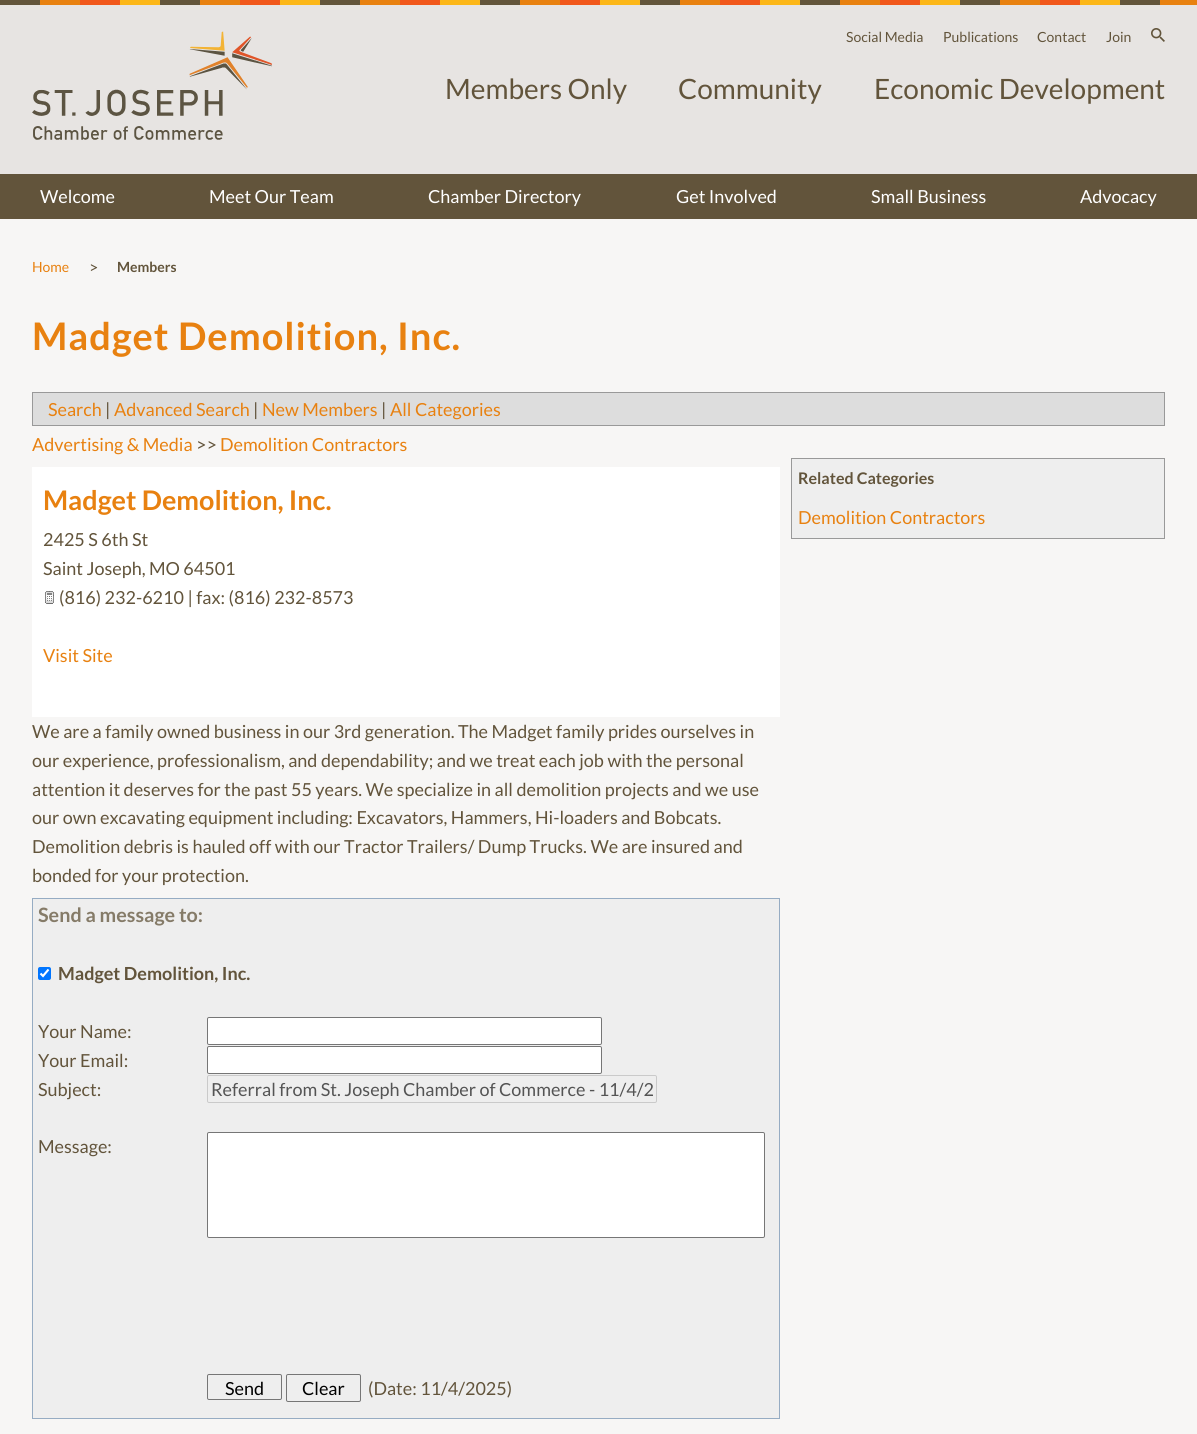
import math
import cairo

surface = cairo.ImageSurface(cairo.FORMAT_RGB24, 1197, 1434)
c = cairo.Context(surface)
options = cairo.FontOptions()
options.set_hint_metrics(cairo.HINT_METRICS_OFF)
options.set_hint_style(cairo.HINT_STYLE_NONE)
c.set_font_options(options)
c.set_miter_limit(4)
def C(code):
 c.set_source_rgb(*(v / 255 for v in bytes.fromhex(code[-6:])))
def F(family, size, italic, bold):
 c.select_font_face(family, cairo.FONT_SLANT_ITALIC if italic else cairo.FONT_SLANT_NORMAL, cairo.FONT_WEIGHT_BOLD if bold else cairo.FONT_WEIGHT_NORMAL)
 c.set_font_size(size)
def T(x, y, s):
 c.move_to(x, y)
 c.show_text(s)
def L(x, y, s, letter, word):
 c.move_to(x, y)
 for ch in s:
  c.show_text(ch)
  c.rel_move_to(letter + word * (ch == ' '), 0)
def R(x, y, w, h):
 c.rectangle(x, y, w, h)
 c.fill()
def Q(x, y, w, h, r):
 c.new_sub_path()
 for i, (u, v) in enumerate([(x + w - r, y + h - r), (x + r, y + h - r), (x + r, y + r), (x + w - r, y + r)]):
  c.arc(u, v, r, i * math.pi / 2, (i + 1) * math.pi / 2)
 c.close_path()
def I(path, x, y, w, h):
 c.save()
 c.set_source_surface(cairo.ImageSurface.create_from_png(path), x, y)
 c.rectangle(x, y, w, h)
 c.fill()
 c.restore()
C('f7f6f5')
c.paint()
I('1.png',0,0,1197,5)
C('e7e4e2')
R(0,5,1197,169)
I('2.png',32,31,240,109)
F('Lato',14,0,0)
C('62543b')
T(846,42,'Social Media')
T(943,42,'Publications')
T(1037,42,'Contact')
T(1106,42,'Join')
I('3.png',1151,28,14,14)
F('Lato',28,0,0)
T(445,99,'Members Only')
T(678,99,'Community')
T(874,99,'Economic Development')
R(0,174,1197,45)
F('Lato',18,0,0)
C('ffffff')
T(40,203,'Welcome')
T(209,203,'Meet Our Team')
T(428,203,'Chamber Directory')
T(676,203,'Get Involved')
T(871,203,'Small Business')
T(1080,203,'Advocacy')
F('Lato',14,0,0)
C('e88110')
T(32,272,'Home')
F('Lato',16,0,0)
C('62543b')
T(89,273,'>')
F('Lato',14,0,1)
T(117,272,'Members')
F('Lato',38,0,1)
C('e88110')
L(32,350,'Madget Demolition, Inc.',1,0)
C('dddddd')
c.rectangle(32.5,392.5,1132,33)
c.fill_preserve()
C('999999')
c.set_line_width(1)
c.stroke()
F('Lato',18,0,0)
C('e88110')
T(48,416,'Search')
C('62543b')
T(105,416,'|')
C('e88110')
T(114,416,'Advanced Search')
C('62543b')
T(253,416,'|')
C('e88110')
T(262,416,'New Members')
C('62543b')
T(381,416,'|')
C('e88110')
T(390,416,'All Categories')
T(32,451,'Advertising & Media')
C('62543b')
T(196,451,'>>')
C('e88110')
T(220,451,'Demolition Contractors')
C('ffffff')
R(32,467,748,250)
F('Lato',27,0,1)
C('e88110')
T(43,510,'Madget Demolition, Inc.')
F('Lato',18,0,0)
C('62543b')
T(43,546,'2425 S 6th St')
T(43,575,'Saint Joseph, MO 64501')
I('4.png',45,591,9,13)
T(59,604,'(816) 232-6210 | fax: (816) 232-8573')
C('e88110')
T(43,662,'Visit Site')
C('62543b')
T(32,738,'We are a family owned business in our 3rd generation. The Madget family prides ourselves in')
T(32,767,'our experience, professionalism, and dependability; and we treat each job with the personal')
T(32,796,'attention it deserves for the past 55 years. We specialize in all demolition projects and we use')
T(32,824,'our own excavating equipment including: Excavators, Hammers, Hi-loaders and Bobcats.')
T(32,853,'Demolition debris is hauled off with our Tractor Trailers/ Dump Trucks. We are insured and')
T(32,882,'bonded for your protection.')
C('eeeeee')
c.rectangle(32.5,898.5,747,520)
c.fill_preserve()
C('96acc3')
c.stroke()
F('Lato',19.75,0,1)
C('857b68')
T(38,922,'Send a message to:')
C('0075ff')
Q(38,967,13,13,2)
c.fill()
c.new_path()
c.move_to(40.5,973.5)
c.line_to(43,976)
c.line_to(48.5,969.5)
C('ffffff')
c.set_line_width(2.1)
c.stroke()
F('Lato',18,0,1)
C('62543b')
T(58,980,'Madget Demolition, Inc.')
F('Lato',18,0,0)
T(38,1038,'Your Name:')
C('ffffff')
Q(207.5,1017.5,394,27,1.5)
c.fill_preserve()
C('767676')
c.set_line_width(1)
c.stroke()
C('62543b')
T(38,1067,'Your Email:')
C('ffffff')
Q(207.5,1046.5,394,27,1.5)
c.fill_preserve()
C('767676')
c.stroke()
C('62543b')
T(38,1096,'Subject:')
Q(207.5,1075.5,449,27,1.5)
C('cacaca')
c.stroke()
c.save()
c.rectangle(211,1078,442,22)
c.clip()
C('545454')
T(211,1096,'Referral from St. Joseph Chamber of Commerce - 11/4/2')
c.restore()
C('62543b')
T(38,1153,'Message:')
C('ffffff')
Q(207.5,1132.5,557,105,1.5)
c.fill_preserve()
C('767676')
c.stroke()
Q(207.5,1374.5,74,25,1.5)
c.stroke()
C('000000')
T(225,1395,'Send')
Q(286.5,1374.5,74,27,1.5)
C('767676')
c.stroke()
C('000000')
T(302,1395,'Clear')
C('62543b')
T(368,1395,'(Date: 11/4/2025)')
C('eeeeee')
c.rectangle(791.5,458.5,373,80)
c.fill_preserve()
C('999999')
c.stroke()
F('Lato',16,0,1)
C('62543b')
T(798,484,'Related Categories')
F('Lato',18,0,0)
C('e88110')
T(798,524,'Demolition Contractors')
surface.write_to_png('o.png')
